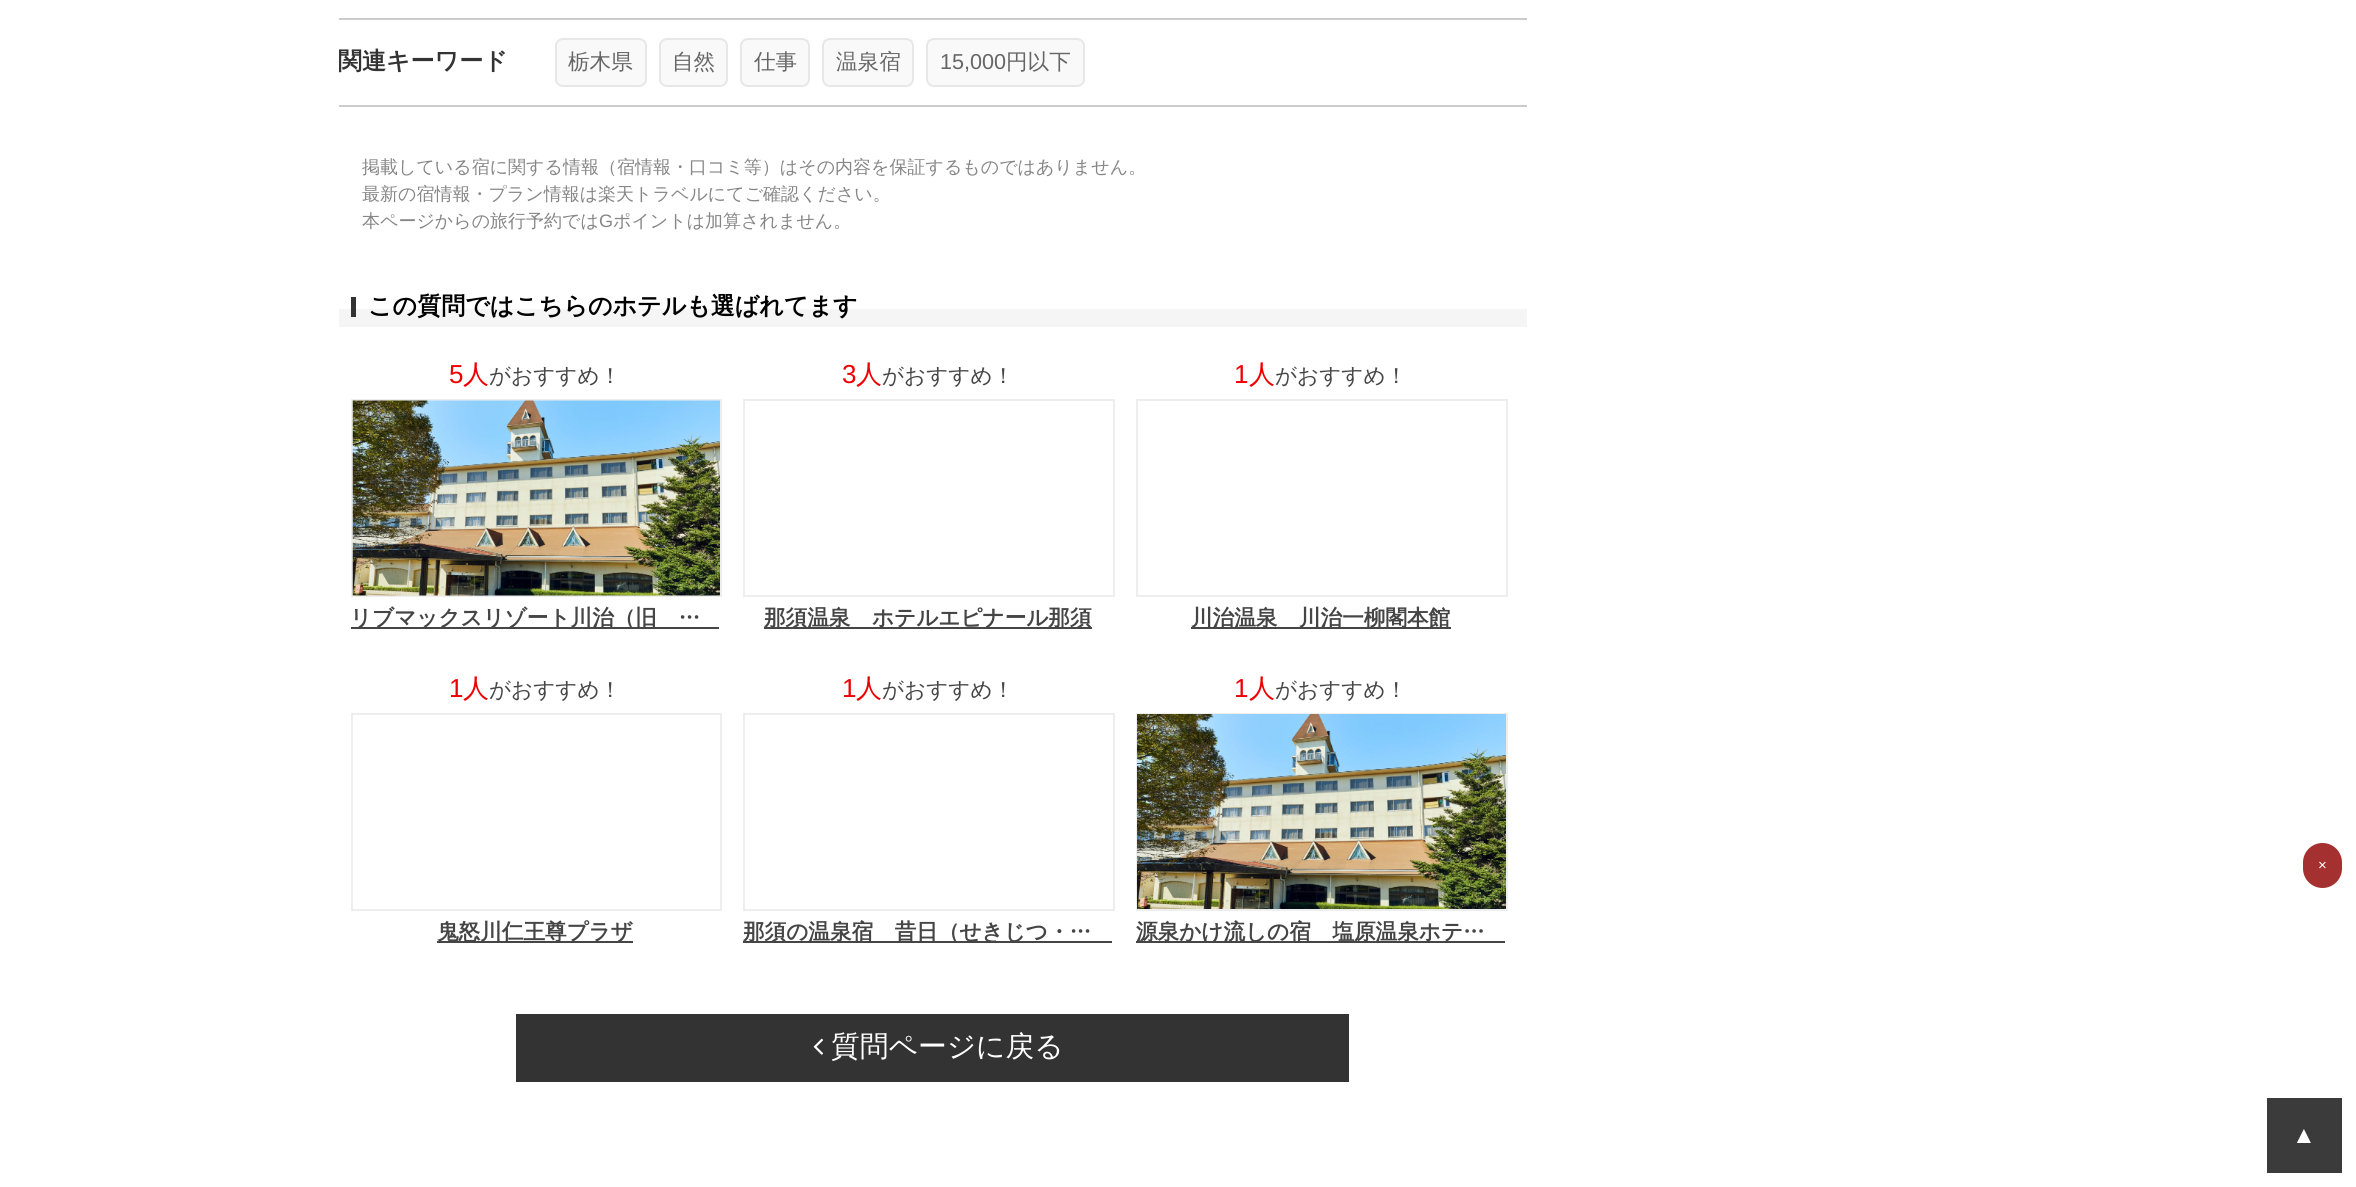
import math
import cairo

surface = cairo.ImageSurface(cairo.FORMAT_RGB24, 2356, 1187)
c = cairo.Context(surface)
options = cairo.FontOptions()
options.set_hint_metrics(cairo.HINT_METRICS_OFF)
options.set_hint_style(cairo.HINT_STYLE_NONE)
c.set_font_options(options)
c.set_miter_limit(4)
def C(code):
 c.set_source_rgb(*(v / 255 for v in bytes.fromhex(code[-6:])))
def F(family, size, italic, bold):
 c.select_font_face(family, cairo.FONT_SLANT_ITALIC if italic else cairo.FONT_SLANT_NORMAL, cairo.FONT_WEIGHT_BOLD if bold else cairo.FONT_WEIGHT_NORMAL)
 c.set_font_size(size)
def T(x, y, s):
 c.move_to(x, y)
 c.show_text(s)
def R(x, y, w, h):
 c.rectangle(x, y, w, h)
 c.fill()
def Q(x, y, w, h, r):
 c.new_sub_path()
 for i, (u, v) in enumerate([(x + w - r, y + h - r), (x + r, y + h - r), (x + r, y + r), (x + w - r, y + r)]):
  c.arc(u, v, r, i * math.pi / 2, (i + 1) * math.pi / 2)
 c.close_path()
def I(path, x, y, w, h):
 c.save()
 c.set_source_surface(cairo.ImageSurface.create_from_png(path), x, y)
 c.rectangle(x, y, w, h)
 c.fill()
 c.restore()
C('ffffff')
c.paint()
C('cccccc')
R(339,18,1188,2)
R(339,105,1188,2)
F('WenQuanYi Zen Hei',24,0,1)
C('333333')
T(338,69,'関連キーワード')
C('f9f9f9')
Q(556,39,90,47,7)
c.fill_preserve()
C('e7e7e7')
c.stroke()
F('WenQuanYi Zen Hei Medium',21.6,0,0)
C('666666')
T(568,69,'栃木県')
C('f9f9f9')
Q(660,39,67,47,7)
c.fill_preserve()
C('e7e7e7')
c.stroke()
C('666666')
T(672,69,'自然')
C('f9f9f9')
Q(741,39,68,47,7)
c.fill_preserve()
C('e7e7e7')
c.stroke()
C('666666')
T(754,69,'仕事')
C('f9f9f9')
Q(823,39,90,47,7)
c.fill_preserve()
C('e7e7e7')
c.stroke()
C('666666')
T(836,69,'温泉宿')
C('f9f9f9')
Q(927,39,157,47,7)
c.fill_preserve()
C('e7e7e7')
c.stroke()
F('Liberation Sans',21.6,0,0)
C('666666')
T(940,69,'15,000')
F('WenQuanYi Zen Hei Medium',21.6,0,0)
T(1006,69,'円以下')
F('WenQuanYi Zen Hei Medium',18,0,0)
C('868686')
T(362,173,'掲載している宿に関する情報（宿情報・口コミ等）はその内容を保証するものではありません。')
T(362,200,'最新の宿情報・プラン情報は楽天トラベルにてご確認ください。')
T(362,227,'本ページからの旅行予約では')
F('Liberation Sans',18,0,0)
T(599,227,'G')
F('WenQuanYi Zen Hei Medium',18,0,0)
T(613,227,'ポイントは加算されません。')
C('f5f5f5')
R(339,309,1188,18)
C('333333')
R(351,297,5,20)
F('WenQuanYi Zen Hei',24,0,1)
C('000000')
T(368,314,'この質問ではこちらのホテルも選ばれてます')
F('Liberation Sans',26,0,0)
C('ef0000')
T(449,383,'5')
F('WenQuanYi Zen Hei Medium',26,0,0)
T(463,383,'人')
F('WenQuanYi Zen Hei Medium',21.6,0,0)
C('454545')
T(489,383,'がおすすめ！')
c.rectangle(352,400,369,196)
C('eeeeee')
c.stroke()
I('1.png',352,400,368,196)
C('454545')
R(351,627,368,2)
F('WenQuanYi Zen Hei',21.6,0,1)
T(350,625,'リブマックスリゾート川治（旧　…')
F('Liberation Sans',26,0,0)
C('ef0000')
T(842,383,'3')
F('WenQuanYi Zen Hei Medium',26,0,0)
T(856,383,'人')
F('WenQuanYi Zen Hei Medium',21.6,0,0)
C('454545')
T(882,383,'がおすすめ！')
c.rectangle(744,400,370,196)
C('eeeeee')
c.stroke()
C('454545')
R(764,627,328,2)
F('WenQuanYi Zen Hei',21.6,0,1)
T(764,625,'那須温泉　ホテルエピナール那須')
F('Liberation Sans',26,0,0)
C('ef0000')
T(1234,383,'1')
F('WenQuanYi Zen Hei Medium',26,0,0)
T(1249,383,'人')
F('WenQuanYi Zen Hei Medium',21.6,0,0)
C('454545')
T(1275,383,'がおすすめ！')
c.rectangle(1137,400,370,196)
C('eeeeee')
c.stroke()
C('454545')
R(1191,627,260,2)
F('WenQuanYi Zen Hei',21.6,0,1)
T(1191,625,'川治温泉　川治一柳閣本館')
F('Liberation Sans',26,0,0)
C('ef0000')
T(449,697,'1')
F('WenQuanYi Zen Hei Medium',26,0,0)
T(463,697,'人')
F('WenQuanYi Zen Hei Medium',21.6,0,0)
C('454545')
T(489,697,'がおすすめ！')
c.rectangle(352,714,369,196)
C('eeeeee')
c.stroke()
C('454545')
R(437,941,196,2)
F('WenQuanYi Zen Hei',21.6,0,1)
T(437,939,'鬼怒川仁王尊プラザ')
F('Liberation Sans',26,0,0)
C('ef0000')
T(842,697,'1')
F('WenQuanYi Zen Hei Medium',26,0,0)
T(856,697,'人')
F('WenQuanYi Zen Hei Medium',21.6,0,0)
C('454545')
T(882,697,'がおすすめ！')
c.rectangle(744,714,370,196)
C('eeeeee')
c.stroke()
C('454545')
R(743,941,369,2)
F('WenQuanYi Zen Hei',21.6,0,1)
T(743,939,'那須の温泉宿　昔日（せきじつ・…')
F('Liberation Sans',26,0,0)
C('ef0000')
T(1234,697,'1')
F('WenQuanYi Zen Hei Medium',26,0,0)
T(1249,697,'人')
F('WenQuanYi Zen Hei Medium',21.6,0,0)
C('454545')
T(1275,697,'がおすすめ！')
c.rectangle(1137,714,370,196)
C('eeeeee')
c.stroke()
I('2.png',1137,714,369,195)
C('454545')
R(1136,941,369,2)
F('WenQuanYi Zen Hei',21.6,0,1)
T(1136,939,'源泉かけ流しの宿　塩原温泉ホテ…')
C('333333')
R(516,1014,833,68)
I('3.png',813,1038,10,17)
F('WenQuanYi Zen Hei Medium',28.75,0,0)
C('ffffff')
T(831,1056,'質問ページに戻る')
C('3b3b3b')
R(2267,1098,75,75)
F('Liberation Sans',24,0,0)
C('ffffff')
T(2292,1143,'▲')
C('a43030')
Q(2303,843,39,45,19.5)
c.fill()
F('Liberation Sans',15,0,0)
C('ffffff')
T(2318,870,'×')
surface.write_to_png('o.png')
